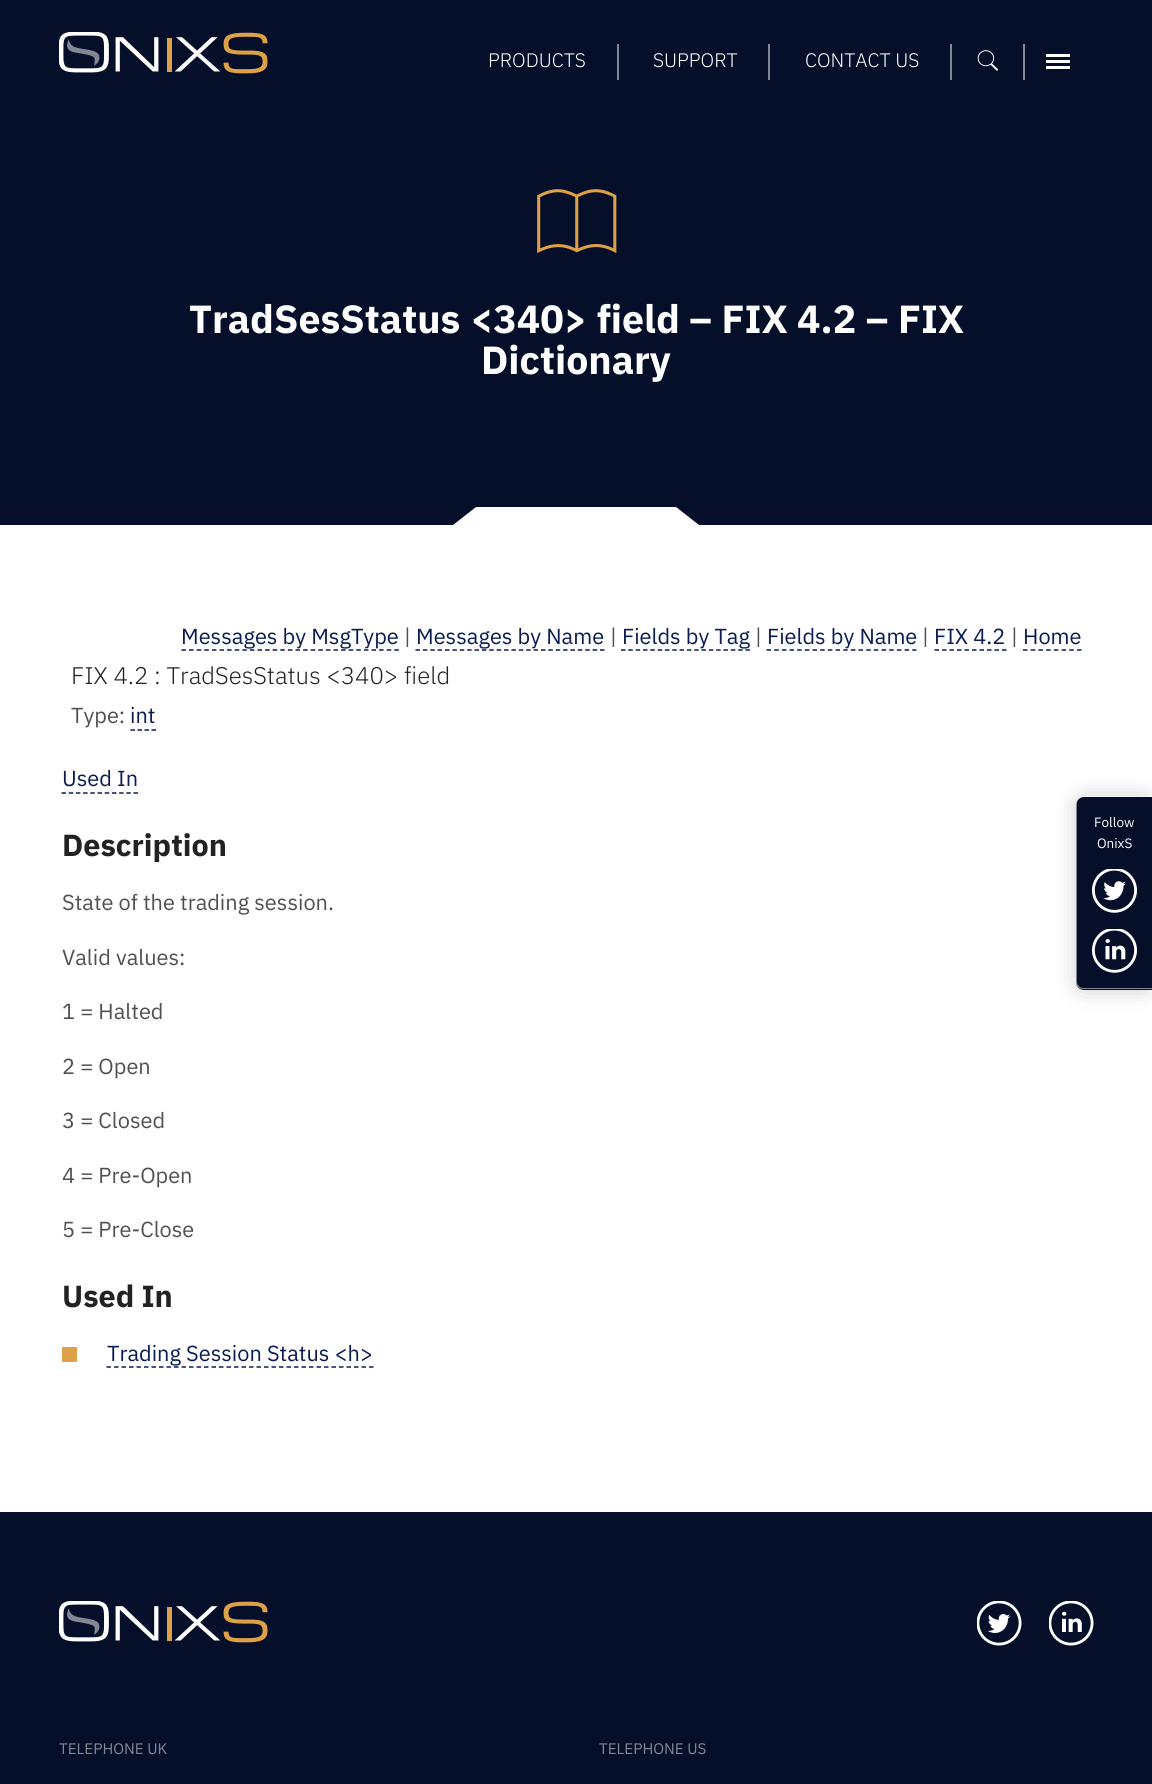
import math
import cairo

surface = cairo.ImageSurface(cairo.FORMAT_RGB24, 1152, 1784)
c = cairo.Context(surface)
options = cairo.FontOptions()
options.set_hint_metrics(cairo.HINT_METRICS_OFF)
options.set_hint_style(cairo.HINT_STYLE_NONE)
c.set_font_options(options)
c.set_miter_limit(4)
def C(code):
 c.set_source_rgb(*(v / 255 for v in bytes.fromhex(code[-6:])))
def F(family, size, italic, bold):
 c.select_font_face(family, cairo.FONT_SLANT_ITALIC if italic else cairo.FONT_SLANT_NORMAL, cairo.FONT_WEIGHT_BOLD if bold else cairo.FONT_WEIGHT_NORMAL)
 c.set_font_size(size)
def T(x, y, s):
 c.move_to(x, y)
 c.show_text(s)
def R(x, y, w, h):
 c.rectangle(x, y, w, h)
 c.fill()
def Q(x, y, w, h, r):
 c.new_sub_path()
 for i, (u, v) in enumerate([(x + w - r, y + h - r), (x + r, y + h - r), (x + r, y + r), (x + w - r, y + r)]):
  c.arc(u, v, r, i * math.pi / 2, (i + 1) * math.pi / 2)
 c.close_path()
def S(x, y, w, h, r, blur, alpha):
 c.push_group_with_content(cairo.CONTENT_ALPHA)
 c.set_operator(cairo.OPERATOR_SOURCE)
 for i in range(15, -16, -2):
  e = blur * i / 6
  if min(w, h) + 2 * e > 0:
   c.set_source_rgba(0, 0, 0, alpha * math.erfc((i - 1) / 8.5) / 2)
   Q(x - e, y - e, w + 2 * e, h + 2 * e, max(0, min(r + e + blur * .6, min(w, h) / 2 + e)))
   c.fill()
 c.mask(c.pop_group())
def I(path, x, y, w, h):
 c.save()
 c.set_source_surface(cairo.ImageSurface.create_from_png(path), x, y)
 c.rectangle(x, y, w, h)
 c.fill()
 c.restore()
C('ffffff')
c.paint()
C('060f2a')
R(0,0,1152,525)
I('1.png',59,32,209,42)
C('838795')
R(617,44,2,36)
F('IBM Plex Sans Light',19.5,0,0)
C('ffffff')
T(488,67,'PRODUCTS')
C('838795')
R(768,44,2,36)
C('ffffff')
T(653,67,'SUPPORT')
C('838795')
R(950,44,2,36)
C('ffffff')
T(805,67,'CONTACT US')
I('2.png',977,50,22,21)
C('838795')
R(1023,44,2,36)
C('ffffff')
R(1046,54,24,3)
R(1046,60,24,3)
R(1046,66,24,3)
I('3.png',537,189,80,64)
F('IBM Plex Sans',39.25,0,1)
T(189,333,'TradSesStatus <340> field – FIX 4.2 – FIX')
T(481,374,'Dictionary')
c.set_fill_rule(cairo.FILL_RULE_EVEN_ODD)
c.new_path()
c.move_to(453,525)
c.line_to(476,507)
c.line_to(676,507)
c.line_to(699,525)
c.close_path()
c.fill()
F('IBM Plex Sans',21.75,0,0)
C('0a1c53')
T(181,644,'Messages by MsgType')
c.new_path()
c.move_to(181.5,650)
c.line_to(399,650)
c.set_line_width(1.5)
c.set_dash([4.5,3.1])
c.stroke()
C('505050')
T(404,644,'|')
C('0a1c53')
T(416,644,'Messages by Name')
c.new_path()
c.move_to(415.5,650)
c.line_to(604.5,650)
c.set_dash([4.5,2.88])
c.stroke()
C('505050')
T(610,644,'|')
C('0a1c53')
T(622,644,'Fields by Tag')
c.new_path()
c.move_to(621,650)
c.line_to(750,650)
c.set_dash([4.5,2.82])
c.stroke()
C('505050')
T(755,644,'|')
C('0a1c53')
T(767,644,'Fields by Name')
c.new_path()
c.move_to(766.5,650)
c.line_to(916.5,650)
c.set_dash([4.5,3.17])
c.stroke()
C('505050')
T(922,644,'|')
C('0a1c53')
T(934,644,'FIX 4.2')
c.new_path()
c.move_to(934.5,650)
c.line_to(1006.5,650)
c.set_dash([4.5,3])
c.stroke()
C('505050')
T(1011,644,'|')
C('0a1c53')
T(1023,644,'Home')
c.new_path()
c.move_to(1023,650)
c.line_to(1081.5,650)
c.set_dash([4.5,3.21])
c.stroke()
F('IBM Plex Sans Light',24,0,0)
C('222222')
T(71,684,'FIX 4.2 : TradSesStatus <340> field')
F('IBM Plex Sans',21.75,0,0)
C('505050')
T(71,723,'Type:')
C('0a1c53')
T(130,723,'int')
c.new_path()
c.move_to(130.5,730)
c.line_to(156,730)
c.set_dash([4.5,2.5])
c.stroke()
T(62,786,'Used In')
c.new_path()
c.move_to(61.5,793)
c.line_to(138,793)
c.set_dash([4.5,2.7])
c.stroke()
F('IBM Plex Sans',30.5,0,1)
C('222222')
T(62,856,'Description')
F('IBM Plex Sans',21.75,0,0)
C('505050')
T(62,910,'State of the trading session.')
T(62,965,'Valid values:')
T(62,1019,'1 = Halted')
T(62,1074,'2 = Open')
T(62,1128,'3 = Closed')
T(62,1183,'4 = Pre-Open')
T(62,1237,'5 = Pre-Close')
F('IBM Plex Sans',30.5,0,1)
C('222222')
T(62,1307,'Used In')
C('dea147')
R(62,1347,15,15)
F('IBM Plex Sans',21.75,0,0)
C('0a1c53')
T(107,1361,'Trading Session Status <h>')
c.new_path()
c.move_to(106.5,1367)
c.line_to(373.5,1367)
c.set_dash([4.5,3])
c.stroke()
C('000000')
S(1076,797,76,193,8,10.5,.2)
C('060f2a')
c.new_path()
c.move_to(1084,797)
c.line_to(1152,797)
c.line_to(1152,990)
c.line_to(1084,990)
c.curve_to(1079.5,990,1076,986.5,1076,982)
c.line_to(1076,805)
c.curve_to(1076,800.5,1079.5,797,1084,797)
c.close_path()
c.fill()
c.set_source_rgba(1,1,1,0.5)
c.new_path()
c.move_to(1083,796)
c.line_to(1152,796)
c.line_to(1152,989)
c.line_to(1083,989)
c.curve_to(1079,989,1076,986,1076,982)
c.line_to(1076,803)
c.curve_to(1076,799,1079,796,1083,796)
c.close_path()
c.move_to(1083,797)
c.line_to(1152,797)
c.line_to(1152,988)
c.line_to(1083,988)
c.curve_to(1080,988,1077,985,1077,982)
c.line_to(1077,803)
c.curve_to(1077,800,1080,797,1083,797)
c.close_path()
c.fill()
F('IBM Plex Sans',13.5,0,0)
C('ffffff')
T(1094,827,'Follow')
T(1097,848,'OnixS')
I('4.png',1092,869,45,44)
I('5.png',1092,929,45,44)
C('060f2a')
R(0,1512,1152,272)
I('1.png',59,1601,209,42)
I('6.png',977,1601,45,45)
I('7.png',1049,1601,45,45)
F('IBM Plex Sans',15.25,0,0)
C('838795')
T(59,1754,'TELEPHONE UK')
T(599,1754,'TELEPHONE US')
surface.write_to_png('o.png')
